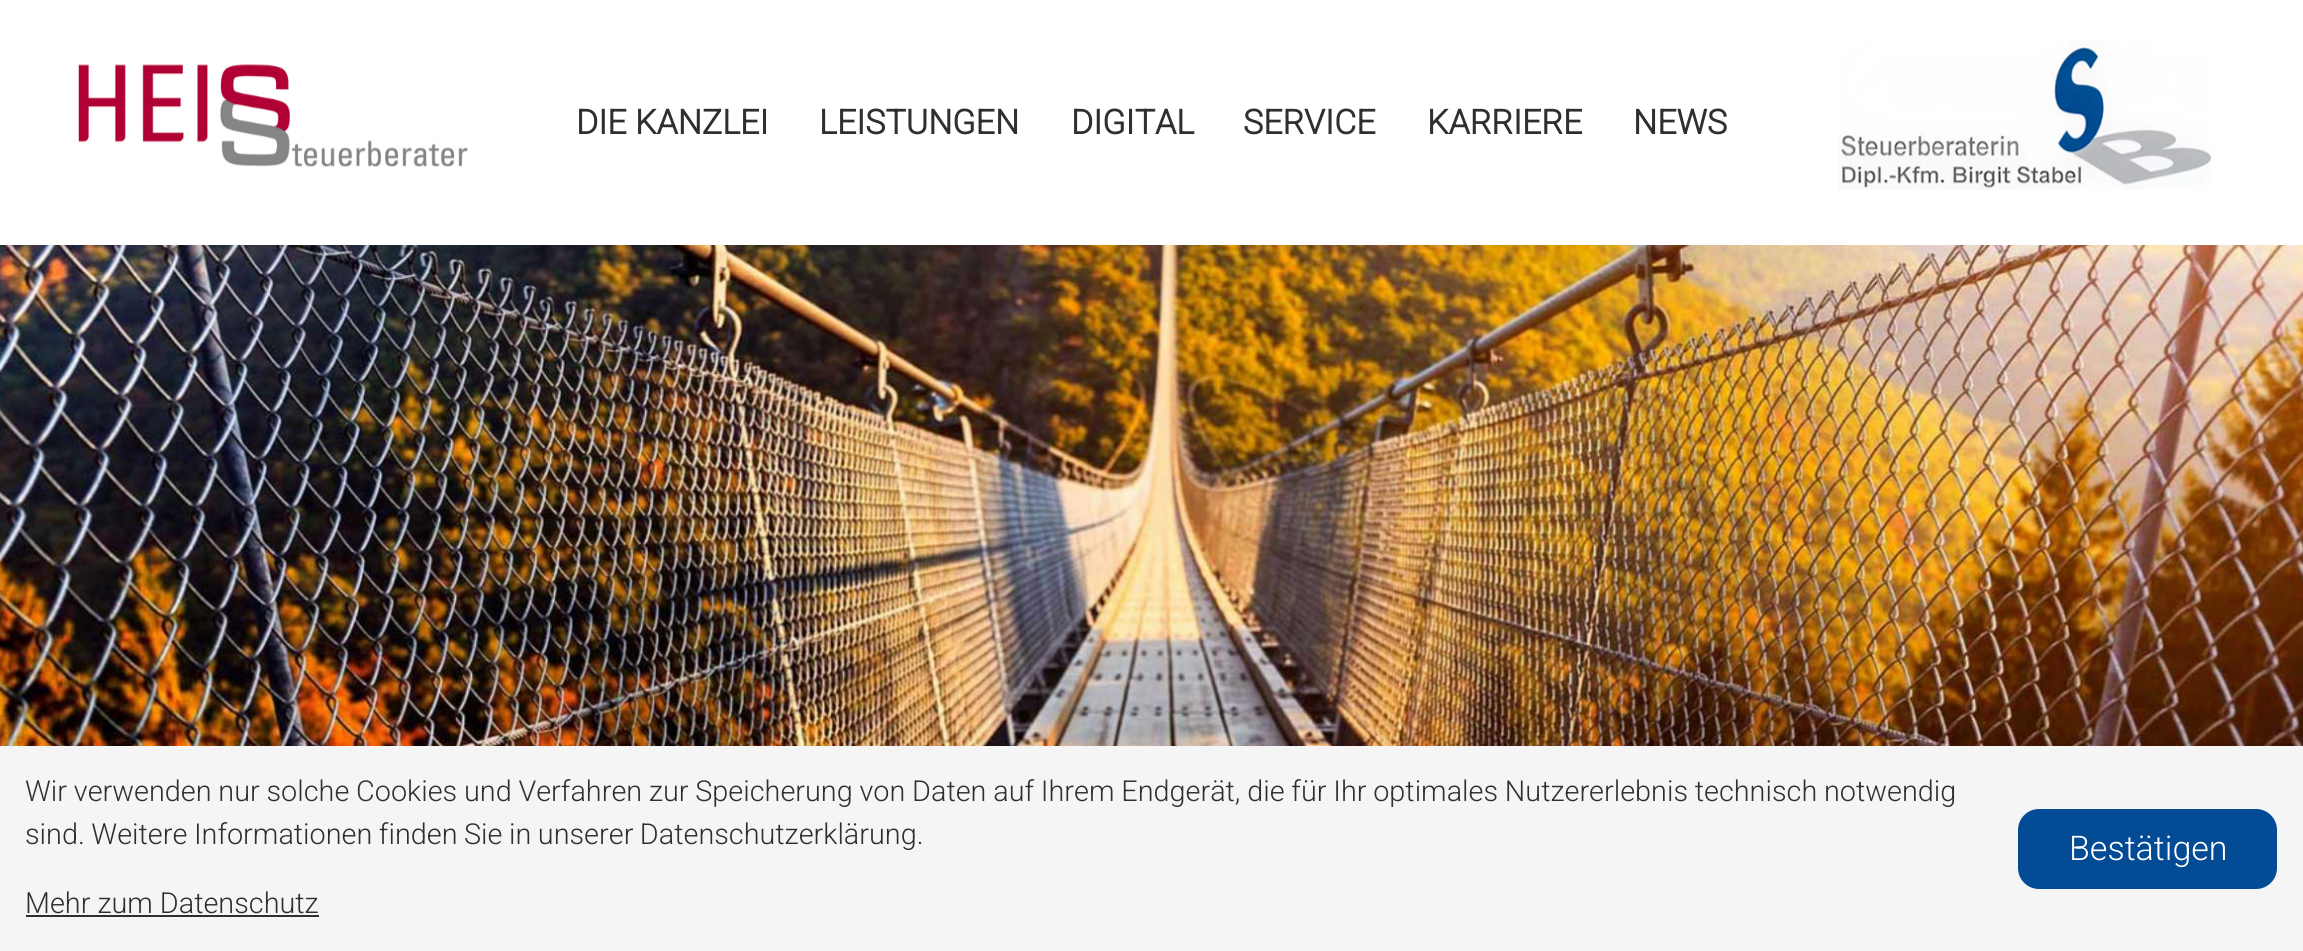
import math
import cairo

surface = cairo.ImageSurface(cairo.FORMAT_RGB24, 2303, 951)
c = cairo.Context(surface)
options = cairo.FontOptions()
options.set_hint_metrics(cairo.HINT_METRICS_OFF)
options.set_hint_style(cairo.HINT_STYLE_NONE)
c.set_font_options(options)
c.set_miter_limit(4)
def C(code):
 c.set_source_rgb(*(v / 255 for v in bytes.fromhex(code[-6:])))
def F(family, size, italic, bold):
 c.select_font_face(family, cairo.FONT_SLANT_ITALIC if italic else cairo.FONT_SLANT_NORMAL, cairo.FONT_WEIGHT_BOLD if bold else cairo.FONT_WEIGHT_NORMAL)
 c.set_font_size(size)
def T(x, y, s):
 c.move_to(x, y)
 c.show_text(s)
def L(x, y, s, letter, word):
 c.move_to(x, y)
 for ch in s:
  c.show_text(ch)
  c.rel_move_to(letter + word * (ch == ' '), 0)
def R(x, y, w, h):
 c.rectangle(x, y, w, h)
 c.fill()
def Q(x, y, w, h, r):
 c.new_sub_path()
 for i, (u, v) in enumerate([(x + w - r, y + h - r), (x + r, y + h - r), (x + r, y + r), (x + w - r, y + r)]):
  c.arc(u, v, r, i * math.pi / 2, (i + 1) * math.pi / 2)
 c.close_path()
def I(path, x, y, w, h):
 c.save()
 c.set_source_surface(cairo.ImageSurface.create_from_png(path), x, y)
 c.rectangle(x, y, w, h)
 c.fill()
 c.restore()
C('ffffff')
c.paint()
I('1.png',78,64,390,103)
F('Roboto',34,0,1)
C('322e2e')
T(576,134,'DIE KANZLEI')
T(819,134,'LEISTUNGEN')
T(1071,134,'DIGITAL')
T(1243,134,'SERVICE')
T(1427,134,'KARRIERE')
T(1633,134,'NEWS')
I('2.png',1838,40,374,150)
I('3.png',0,245,2303,501)
C('f5f5f5')
R(0,746,2303,205)
F('Roboto Light',28.82,0,0)
C('322e2e')
L(25,801,'Wir verwenden nur solche Cookies und Verfahren zur Speicherung von Daten auf Ihrem Endgerät, die für Ihr optimales Nutzererlebnis technisch notwendig',0,-.25)
L(25,844,'sind. Weitere Informationen finden Sie in unserer Datenschutzerklärung.',0,-.5)
C('034b95')
Q(2018,809,259,80,21)
c.fill()
F('Roboto Light',34,0,0)
C('ffffff')
T(2069,860,'Bestätigen')
F('Roboto Light',28.82,0,0)
C('322e2e')
T(25,913,'Mehr zum Datenschutz')
R(26,915,293,2)
surface.write_to_png('o.png')
